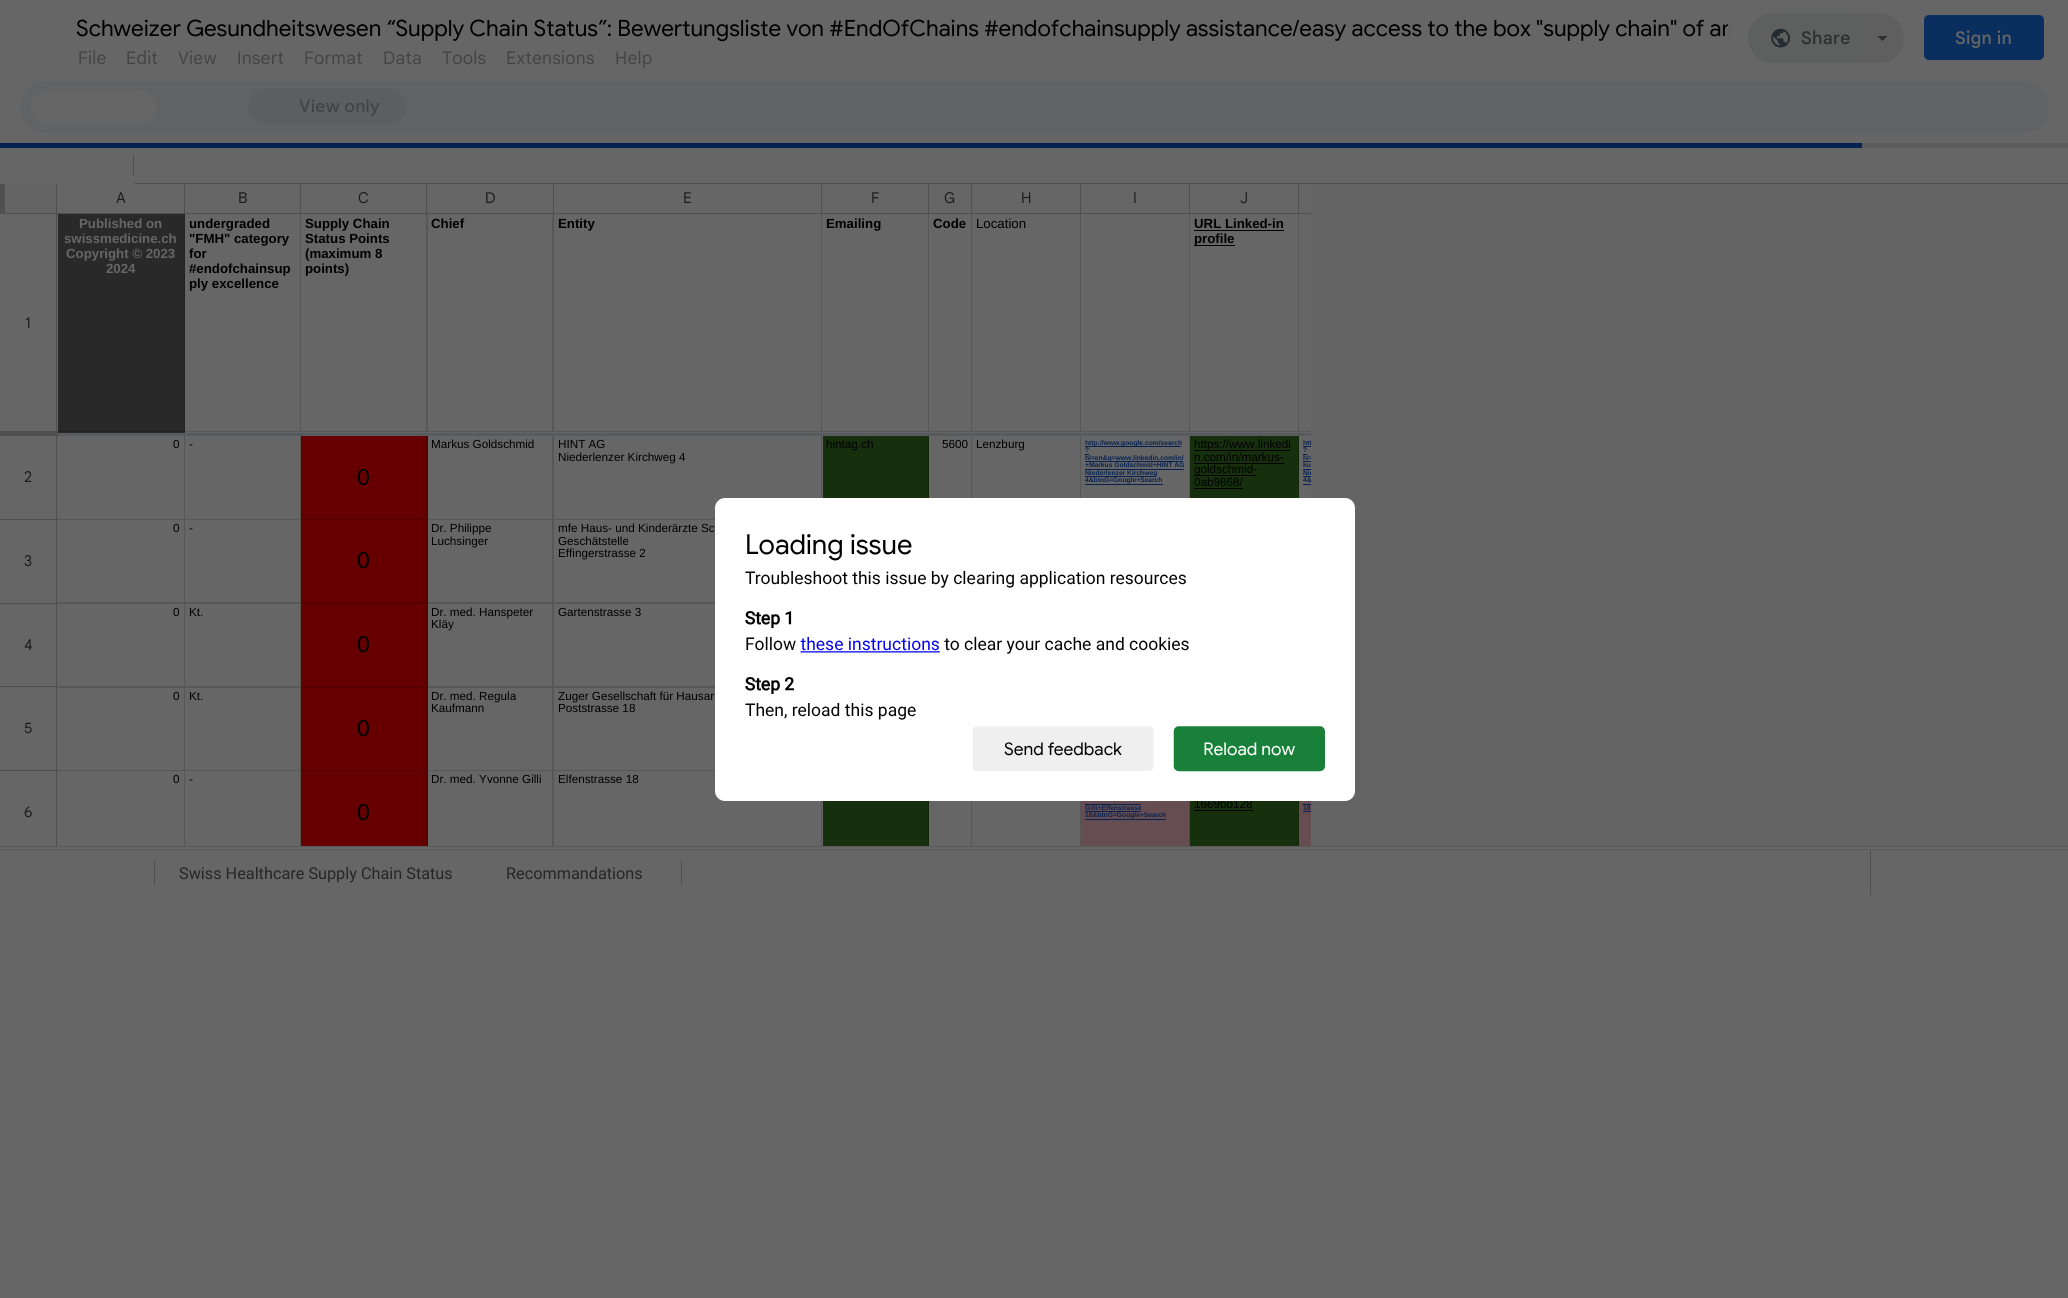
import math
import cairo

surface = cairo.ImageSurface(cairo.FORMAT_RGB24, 2068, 1298)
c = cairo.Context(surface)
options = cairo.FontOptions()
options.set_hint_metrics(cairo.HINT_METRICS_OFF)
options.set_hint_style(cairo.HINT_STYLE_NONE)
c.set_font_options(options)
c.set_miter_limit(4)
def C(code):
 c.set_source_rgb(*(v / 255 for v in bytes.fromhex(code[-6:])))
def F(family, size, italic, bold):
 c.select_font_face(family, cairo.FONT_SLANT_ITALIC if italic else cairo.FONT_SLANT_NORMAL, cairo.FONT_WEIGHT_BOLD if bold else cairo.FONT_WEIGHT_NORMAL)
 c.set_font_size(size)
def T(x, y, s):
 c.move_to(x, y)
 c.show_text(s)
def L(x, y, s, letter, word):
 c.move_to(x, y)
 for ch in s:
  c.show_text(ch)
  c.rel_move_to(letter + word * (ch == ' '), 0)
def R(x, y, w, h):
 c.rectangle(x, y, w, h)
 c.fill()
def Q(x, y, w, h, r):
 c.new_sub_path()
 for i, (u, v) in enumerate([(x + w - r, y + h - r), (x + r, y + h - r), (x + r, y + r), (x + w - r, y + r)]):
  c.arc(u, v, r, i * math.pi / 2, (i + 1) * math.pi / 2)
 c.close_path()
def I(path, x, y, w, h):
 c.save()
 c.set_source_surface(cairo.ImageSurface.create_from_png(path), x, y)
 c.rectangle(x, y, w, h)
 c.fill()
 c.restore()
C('666666')
c.paint()
F('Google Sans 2',22.5,0,0)
C('000000')
T(76,36,'Schweizer Gesundheitswesen “Supply Chain Status”: Bewertungsliste von #EndOfChains #endofchainsupply assistance/easy access to the box "supply chain" of an')
C('646465')
R(1728,24,5,12)
C('5e5f5f')
c.new_path()
c.move_to(1773,13)
c.line_to(1863,13)
c.line_to(1863,63)
c.line_to(1773,63)
c.curve_to(1759,63,1748,52,1748,38)
c.curve_to(1748,24,1759,13,1773,13)
c.close_path()
c.fill()
I('1.png',1771,28,19,20)
F('Google Sans 2 Medium',17.5,0,0)
C('2e2e2e')
L(1801,44,'Share',.25,0)
c.set_source_rgba(0.357,0.357,0.357,0.62)
c.new_path()
c.move_to(1861,13)
c.line_to(1879,13)
c.curve_to(1893,13,1904,24,1904,38)
c.curve_to(1904,52,1893,63,1879,63)
c.line_to(1861,63)
c.close_path()
c.fill()
c.set_source_rgba(0.4,0.4,0.4,0.62)
c.new_path()
c.move_to(1862,14)
c.line_to(1862,61)
c.line_to(1863,61)
c.line_to(1861,62)
c.line_to(1861,12)
c.line_to(1863,14)
c.close_path()
c.fill()
C('2e2e2e')
c.new_path()
c.move_to(1877.5,36)
c.line_to(1887.5,36)
c.line_to(1882.5,41)
c.close_path()
c.fill()
C('0a2e5d')
Q(1924,15,120,45,5)
c.fill()
C('666666')
L(1955,44,'Sign in',.25,0)
F('Google Sans',17.5,0,0)
C('444444')
L(78,64,'File',.25,0)
L(126,64,'Edit',.25,0)
L(178,64,'View',.25,0)
L(237,64,'Insert',.25,0)
L(304,64,'Format',.25,0)
L(383,64,'Data',.25,0)
L(442,64,'Tools',.25,0)
L(506,64,'Extensions',.25,0)
L(615,64,'Help',.25,0)
C('606264')
Q(20,81,2029,52,26)
c.fill()
C('666666')
Q(31,90,125,35,17.5)
c.fill()
C('5c5e60')
Q(248,89,158,35,17.5)
c.fill()
F('Google Sans Medium',17.5,0,0)
C('444444')
L(299,112,'View only',.25,0)
C('5a5b5a')
R(1862,143,206,5)
C('042353')
R(0,143,1862,5)
C('505050')
R(133,155,1,21)
R(134,183,1934,1)
C('636463')
R(0,184,2068,664)
C('505050')
R(0,184,5,30)
R(56,184,1,30)
R(0,213,58,1)
C('666666')
R(58,184,126,29)
C('505050')
R(184,184,1,30)
R(58,213,127,1)
F('Google Sans',15,0,0)
C('1b1c1c')
T(116,203,'A')
C('666666')
R(185,184,115,29)
C('505050')
R(300,184,1,30)
R(185,213,116,1)
C('1b1c1c')
T(238,203,'B')
C('666666')
R(301,184,125,29)
C('505050')
R(426,184,1,30)
R(301,213,127,1)
C('1b1c1c')
T(358,203,'C')
C('666666')
R(428,184,125,29)
C('505050')
R(553,184,1,30)
R(428,213,126,1)
F('Google Sans 2',15,0,0)
C('1b1c1c')
T(485,203,'D')
C('666666')
R(554,184,267,29)
C('505050')
R(821,184,1,30)
R(554,213,269,1)
F('Google Sans',15,0,0)
C('1b1c1c')
T(683,203,'E')
C('666666')
R(823,184,105,29)
C('505050')
R(928,184,1,30)
R(823,213,106,1)
C('1b1c1c')
T(871,203,'F')
C('666666')
R(929,184,42,29)
C('505050')
R(971,184,1,30)
R(929,213,44,1)
C('1b1c1c')
T(944,203,'G')
C('666666')
R(973,184,107,29)
C('505050')
R(1080,184,1,30)
R(973,213,108,1)
F('Google Sans 2',15,0,0)
C('1b1c1c')
T(1021,203,'H')
C('666666')
R(1081,184,108,29)
C('505050')
R(1189,184,1,30)
R(1081,213,109,1)
F('Google Sans',15,0,0)
C('1b1c1c')
T(1133,203,'I')
C('666666')
R(1190,184,108,29)
C('505050')
R(1298,184,1,30)
R(1190,213,121,1)
F('Google Sans 2',15,0,0)
C('1b1c1c')
T(1240,203,'J')
C('666666')
R(1299,184,12,29)
C('292929')
R(58,214,127,219)
C('232323')
c.new_path()
c.move_to(185,214)
c.line_to(185,432)
c.line_to(184,431)
c.line_to(184,214)
c.close_path()
c.fill()
c.set_source_rgba(0,0,0,0.15)
c.new_path()
c.move_to(185,432)
c.line_to(58,432)
c.line_to(58,431)
c.line_to(184,431)
c.close_path()
c.fill()
F('Liberation Sans',13.25,0,1)
C('666666')
T(79,228,'Published on')
T(64,243,'swissmedicine.ch')
T(66,258,'Copyright © 2023')
T(106,273,'2024')
R(185,214,1126,219)
C('575757')
c.new_path()
c.move_to(301,214)
c.line_to(301,432)
c.line_to(300,431)
c.line_to(300,214)
c.close_path()
c.fill()
c.set_source_rgba(0,0,0,0.15)
c.new_path()
c.move_to(301,432)
c.line_to(185,432)
c.line_to(185,431)
c.line_to(300,431)
c.close_path()
c.fill()
C('000000')
T(189,228,'undergraded')
T(189,243,'"FMH" category')
T(189,258,'for')
T(189,273,'#endofchainsup')
T(189,288,'ply excellence')
C('575757')
c.new_path()
c.move_to(428,214)
c.line_to(428,432)
c.line_to(426,431)
c.line_to(426,214)
c.close_path()
c.fill()
c.set_source_rgba(0,0,0,0.15)
c.new_path()
c.move_to(428,432)
c.line_to(301,432)
c.line_to(301,431)
c.line_to(426,431)
c.close_path()
c.fill()
C('000000')
T(305,228,'Supply Chain')
T(305,243,'Status Points')
T(305,258,'(maximum 8')
T(305,273,'points)')
C('575757')
c.new_path()
c.move_to(554,214)
c.line_to(554,432)
c.line_to(552,431)
c.line_to(552,214)
c.close_path()
c.fill()
c.set_source_rgba(0,0,0,0.15)
c.new_path()
c.move_to(554,432)
c.line_to(428,432)
c.line_to(428,431)
c.line_to(552,431)
c.close_path()
c.fill()
C('000000')
T(431,228,'Chief')
C('575757')
c.new_path()
c.move_to(822,214)
c.line_to(822,432)
c.line_to(821,431)
c.line_to(821,214)
c.close_path()
c.fill()
c.set_source_rgba(0,0,0,0.15)
c.new_path()
c.move_to(822,432)
c.line_to(554,432)
c.line_to(554,431)
c.line_to(821,431)
c.close_path()
c.fill()
C('000000')
T(558,228,'Entity')
C('575757')
c.new_path()
c.move_to(929,214)
c.line_to(929,432)
c.line_to(928,431)
c.line_to(928,214)
c.close_path()
c.fill()
c.set_source_rgba(0,0,0,0.15)
c.new_path()
c.move_to(929,432)
c.line_to(822,432)
c.line_to(822,431)
c.line_to(928,431)
c.close_path()
c.fill()
C('000000')
T(826,228,'Emailing')
C('575757')
c.new_path()
c.move_to(972,214)
c.line_to(972,432)
c.line_to(971,431)
c.line_to(971,214)
c.close_path()
c.fill()
c.set_source_rgba(0,0,0,0.15)
c.new_path()
c.move_to(972,432)
c.line_to(929,432)
c.line_to(929,431)
c.line_to(971,431)
c.close_path()
c.fill()
C('000000')
T(933,228,'Code')
C('575757')
c.new_path()
c.move_to(1081,214)
c.line_to(1081,432)
c.line_to(1080,431)
c.line_to(1080,214)
c.close_path()
c.fill()
c.set_source_rgba(0,0,0,0.15)
c.new_path()
c.move_to(1081,432)
c.line_to(972,432)
c.line_to(972,431)
c.line_to(1080,431)
c.close_path()
c.fill()
F('Liberation Sans',13.25,0,0)
C('000000')
T(976,228,'Location')
C('575757')
c.new_path()
c.move_to(1190,214)
c.line_to(1190,432)
c.line_to(1189,431)
c.line_to(1189,214)
c.close_path()
c.fill()
c.set_source_rgba(0,0,0,0.15)
c.new_path()
c.move_to(1190,432)
c.line_to(1081,432)
c.line_to(1081,431)
c.line_to(1189,431)
c.close_path()
c.fill()
C('575757')
c.new_path()
c.move_to(1299,214)
c.line_to(1299,432)
c.line_to(1298,431)
c.line_to(1298,214)
c.close_path()
c.fill()
c.set_source_rgba(0,0,0,0.15)
c.new_path()
c.move_to(1299,432)
c.line_to(1190,432)
c.line_to(1190,431)
c.line_to(1298,431)
c.close_path()
c.fill()
F('Liberation Sans',13.25,0,1)
C('000000')
T(1194,228,'URL Linked-in')
R(1194,230,90,1)
R(1194,245,41,1)
T(1194,243,'profile')
C('666666')
R(0,214,56,217)
C('505050')
R(0,432,58,5)
R(56,214,1,219)
R(0,431,58,1)
F('Google Sans',15,0,0)
C('1b1c1c')
T(25,328,'1')
c.save()
c.rectangle(0,184,1311,662)
c.clip()
C('575757')
c.new_path()
c.move_to(1408,432)
c.line_to(1299,432)
c.line_to(1299,431)
c.line_to(1406,431)
c.close_path()
c.fill()
c.restore()
C('585b5e')
R(58,433,1253,3)
C('666666')
R(58,436,243,84)
C('575757')
c.new_path()
c.move_to(185,436)
c.line_to(185,520)
c.line_to(184,519)
c.line_to(184,436)
c.close_path()
c.fill()
c.set_source_rgba(0,0,0,0.15)
c.new_path()
c.move_to(185,520)
c.line_to(58,520)
c.line_to(58,519)
c.line_to(184,519)
c.close_path()
c.fill()
F('Liberation Sans',11.7,0,0)
C('000000')
T(173,448,'0')
C('575757')
c.new_path()
c.move_to(301,436)
c.line_to(301,520)
c.line_to(300,519)
c.line_to(300,436)
c.close_path()
c.fill()
c.set_source_rgba(0,0,0,0.15)
c.new_path()
c.move_to(301,520)
c.line_to(185,520)
c.line_to(185,519)
c.line_to(300,519)
c.close_path()
c.fill()
C('000000')
T(189,448,'-')
C('666666')
R(428,436,395,84)
C('575757')
c.new_path()
c.move_to(554,436)
c.line_to(554,520)
c.line_to(552,519)
c.line_to(552,436)
c.close_path()
c.fill()
c.set_source_rgba(0,0,0,0.15)
c.new_path()
c.move_to(554,520)
c.line_to(428,520)
c.line_to(428,519)
c.line_to(552,519)
c.close_path()
c.fill()
C('000000')
T(431,448,'Markus Goldschmid')
C('575757')
c.new_path()
c.move_to(822,436)
c.line_to(822,520)
c.line_to(821,519)
c.line_to(821,436)
c.close_path()
c.fill()
c.set_source_rgba(0,0,0,0.15)
c.new_path()
c.move_to(822,520)
c.line_to(554,520)
c.line_to(554,519)
c.line_to(821,519)
c.close_path()
c.fill()
C('000000')
T(558,448,'HINT AG')
T(558,461,'Niederlenzer Kirchweg 4')
C('162f0c')
R(823,436,105,62)
C('13280a')
c.new_path()
c.move_to(929,436)
c.line_to(929,520)
c.line_to(928,519)
c.line_to(928,436)
c.close_path()
c.fill()
C('000000')
T(826,448,'hintag.ch')
C('666666')
R(929,436,151,62)
C('575757')
c.new_path()
c.move_to(972,436)
c.line_to(972,520)
c.line_to(971,519)
c.line_to(971,436)
c.close_path()
c.fill()
C('000000')
T(942,448,'5600')
C('575757')
c.new_path()
c.move_to(1081,436)
c.line_to(1081,520)
c.line_to(1080,519)
c.line_to(1080,436)
c.close_path()
c.fill()
C('000000')
T(976,448,'Lenzburg')
C('666666')
R(1081,436,108,62)
C('575757')
c.new_path()
c.move_to(1190,436)
c.line_to(1190,520)
c.line_to(1189,519)
c.line_to(1189,436)
c.close_path()
c.fill()
C('072252')
R(1085,446,96,1)
F('Liberation Sans',6.7,0,1)
T(1085,445,'http://www.google.com/search')
T(1085,452,'?')
R(1085,461,98,1)
T(1085,460,'hl=en&q=www.linkedin.com/in/')
R(1085,454,4,1)
T(1085,467,'+Markus Goldschmid+HINT AG')
R(1085,469,99,1)
R(1085,476,71,1)
T(1085,475,'Niederlenzer Kirchweg')
T(1085,482,'4&btnG=Google+Search')
R(1085,484,78,1)
C('162f0c')
R(1190,436,108,62)
C('13280a')
c.new_path()
c.move_to(1299,436)
c.line_to(1299,520)
c.line_to(1298,519)
c.line_to(1298,436)
c.close_path()
c.fill()
C('000000')
R(1194,450,96,1)
F('Liberation Sans',11.7,0,0)
T(1194,448,'https://www.linkedi')
T(1194,461,'n.com/in/markus-')
R(1194,463,90,1)
R(1194,475,62,1)
T(1194,473,'goldschmid-')
T(1194,486,'0ab9868/')
R(1194,488,49,1)
C('666666')
R(1299,436,12,62)
F('Liberation Sans',6.7,0,1)
C('072252')
T(1303,445,'htt')
T(1303,452,'?')
R(1303,446,8,1)
c.save()
c.rectangle(1299,436,12,83)
c.clip()
T(1303,460,'hl=')
c.restore()
R(1303,454,4,1)
T(1303,467,'ku')
R(1303,461,8,1)
R(1303,469,8,1)
c.save()
c.rectangle(1299,436,12,83)
c.clip()
T(1303,475,'Nie')
c.restore()
R(1303,476,8,1)
T(1303,482,'4&')
R(1303,484,8,1)
C('666666')
R(0,436,56,83)
C('505050')
R(56,436,1,410)
R(0,519,58,1)
F('Google Sans',15,0,0)
C('1b1c1c')
T(24,482,'2')
C('660000')
R(301,436,127,335)
C('570000')
c.new_path()
c.move_to(428,436)
c.line_to(428,520)
c.line_to(426,519)
c.line_to(426,436)
c.close_path()
c.fill()
c.set_source_rgba(0,0,0,0.15)
c.new_path()
c.move_to(428,520)
c.line_to(301,520)
c.line_to(301,519)
c.line_to(426,519)
c.close_path()
c.fill()
F('Liberation Sans',23,0,0)
C('000000')
T(357,485,'0')
C('666666')
R(58,520,243,84)
C('575757')
c.new_path()
c.move_to(185,520)
c.line_to(185,604)
c.line_to(184,602)
c.line_to(184,520)
c.close_path()
c.fill()
c.set_source_rgba(0,0,0,0.15)
c.new_path()
c.move_to(185,604)
c.line_to(58,604)
c.line_to(58,602)
c.line_to(184,602)
c.close_path()
c.fill()
F('Liberation Sans',11.7,0,0)
C('000000')
T(173,532,'0')
C('575757')
c.new_path()
c.move_to(301,520)
c.line_to(301,604)
c.line_to(300,602)
c.line_to(300,520)
c.close_path()
c.fill()
c.set_source_rgba(0,0,0,0.15)
c.new_path()
c.move_to(301,604)
c.line_to(185,604)
c.line_to(185,602)
c.line_to(300,602)
c.close_path()
c.fill()
C('000000')
T(189,532,'-')
C('666666')
R(428,520,287,84)
C('575757')
c.new_path()
c.move_to(554,520)
c.line_to(554,604)
c.line_to(552,602)
c.line_to(552,520)
c.close_path()
c.fill()
c.set_source_rgba(0,0,0,0.15)
c.new_path()
c.move_to(554,604)
c.line_to(428,604)
c.line_to(428,602)
c.line_to(552,602)
c.close_path()
c.fill()
C('000000')
T(431,532,'Dr. Philippe')
T(431,545,'Luchsinger')
c.set_source_rgba(0,0,0,0.15)
c.new_path()
c.move_to(822,604)
c.line_to(554,604)
c.line_to(554,602)
c.line_to(821,602)
c.close_path()
c.fill()
C('000000')
T(558,532,'mfe Haus- und Kinderärzte Sc')
T(558,545,'Geschätstelle')
T(558,557,'Effingerstrasse 2')
C('666666')
R(0,520,56,83)
C('505050')
R(0,603,58,1)
F('Google Sans',15,0,0)
C('1b1c1c')
T(24,566,'3')
C('570000')
c.new_path()
c.move_to(428,520)
c.line_to(428,604)
c.line_to(426,602)
c.line_to(426,520)
c.close_path()
c.fill()
c.set_source_rgba(0,0,0,0.15)
c.new_path()
c.move_to(428,604)
c.line_to(301,604)
c.line_to(301,602)
c.line_to(426,602)
c.close_path()
c.fill()
F('Liberation Sans',23,0,0)
C('000000')
T(357,568,'0')
C('666666')
R(58,604,243,84)
C('575757')
c.new_path()
c.move_to(185,604)
c.line_to(185,688)
c.line_to(184,686)
c.line_to(184,604)
c.close_path()
c.fill()
c.set_source_rgba(0,0,0,0.15)
c.new_path()
c.move_to(185,688)
c.line_to(58,688)
c.line_to(58,686)
c.line_to(184,686)
c.close_path()
c.fill()
F('Liberation Sans',11.7,0,0)
C('000000')
T(173,616,'0')
C('575757')
c.new_path()
c.move_to(301,604)
c.line_to(301,688)
c.line_to(300,686)
c.line_to(300,604)
c.close_path()
c.fill()
c.set_source_rgba(0,0,0,0.15)
c.new_path()
c.move_to(301,688)
c.line_to(185,688)
c.line_to(185,686)
c.line_to(300,686)
c.close_path()
c.fill()
C('000000')
T(189,616,'Kt.')
C('666666')
R(428,604,287,84)
C('575757')
c.new_path()
c.move_to(554,604)
c.line_to(554,688)
c.line_to(552,686)
c.line_to(552,604)
c.close_path()
c.fill()
c.set_source_rgba(0,0,0,0.15)
c.new_path()
c.move_to(554,688)
c.line_to(428,688)
c.line_to(428,686)
c.line_to(552,686)
c.close_path()
c.fill()
C('000000')
T(431,616,'Dr. med. Hanspeter')
T(431,628,'Kläy')
c.set_source_rgba(0,0,0,0.15)
c.new_path()
c.move_to(822,688)
c.line_to(554,688)
c.line_to(554,686)
c.line_to(821,686)
c.close_path()
c.fill()
C('000000')
T(558,616,'Gartenstrasse 3')
C('666666')
R(0,604,56,82)
C('505050')
R(0,686,58,1)
F('Google Sans',15,0,0)
C('1b1c1c')
T(24,650,'4')
C('570000')
c.new_path()
c.move_to(428,604)
c.line_to(428,688)
c.line_to(426,686)
c.line_to(426,604)
c.close_path()
c.fill()
c.set_source_rgba(0,0,0,0.15)
c.new_path()
c.move_to(428,688)
c.line_to(301,688)
c.line_to(301,686)
c.line_to(426,686)
c.close_path()
c.fill()
F('Liberation Sans',23,0,0)
C('000000')
T(357,652,'0')
C('666666')
R(58,688,243,83)
C('575757')
c.new_path()
c.move_to(185,688)
c.line_to(185,771)
c.line_to(184,770)
c.line_to(184,688)
c.close_path()
c.fill()
c.set_source_rgba(0,0,0,0.15)
c.new_path()
c.move_to(185,771)
c.line_to(58,771)
c.line_to(58,770)
c.line_to(184,770)
c.close_path()
c.fill()
F('Liberation Sans',11.7,0,0)
C('000000')
T(173,700,'0')
C('575757')
c.new_path()
c.move_to(301,688)
c.line_to(301,771)
c.line_to(300,770)
c.line_to(300,688)
c.close_path()
c.fill()
c.set_source_rgba(0,0,0,0.15)
c.new_path()
c.move_to(301,771)
c.line_to(185,771)
c.line_to(185,770)
c.line_to(300,770)
c.close_path()
c.fill()
C('000000')
T(189,700,'Kt.')
C('666666')
R(428,688,287,83)
C('575757')
c.new_path()
c.move_to(554,688)
c.line_to(554,771)
c.line_to(552,770)
c.line_to(552,688)
c.close_path()
c.fill()
c.set_source_rgba(0,0,0,0.15)
c.new_path()
c.move_to(554,771)
c.line_to(428,771)
c.line_to(428,770)
c.line_to(552,770)
c.close_path()
c.fill()
C('000000')
T(431,700,'Dr. med. Regula')
T(431,712,'Kaufmann')
c.set_source_rgba(0,0,0,0.15)
c.new_path()
c.move_to(822,771)
c.line_to(554,771)
c.line_to(554,770)
c.line_to(821,770)
c.close_path()
c.fill()
C('000000')
T(558,700,'Zuger Gesellschaft für Hausar')
T(558,712,'Poststrasse 18')
C('666666')
R(0,688,56,82)
C('505050')
R(0,770,58,1)
F('Google Sans 2',15,0,0)
C('1b1c1c')
T(24,733,'5')
C('570000')
c.new_path()
c.move_to(428,688)
c.line_to(428,771)
c.line_to(426,770)
c.line_to(426,688)
c.close_path()
c.fill()
c.set_source_rgba(0,0,0,0.15)
c.new_path()
c.move_to(428,771)
c.line_to(301,771)
c.line_to(301,770)
c.line_to(426,770)
c.close_path()
c.fill()
F('Liberation Sans',23,0,0)
C('000000')
T(357,736,'0')
C('666666')
R(58,771,126,75)
c.save()
c.rectangle(0,184,1311,662)
c.clip()
C('575757')
c.new_path()
c.move_to(185,771)
c.line_to(185,855)
c.line_to(184,854)
c.line_to(184,771)
c.close_path()
c.fill()
c.restore()
F('Liberation Sans',11.7,0,0)
C('000000')
T(173,783,'0')
C('666666')
R(185,771,115,75)
c.save()
c.rectangle(0,184,1311,662)
c.clip()
C('575757')
c.new_path()
c.move_to(301,771)
c.line_to(301,855)
c.line_to(300,854)
c.line_to(300,771)
c.close_path()
c.fill()
c.restore()
C('000000')
T(189,783,'-')
C('666666')
R(428,771,124,75)
c.save()
c.rectangle(0,184,1311,662)
c.clip()
C('575757')
c.new_path()
c.move_to(554,771)
c.line_to(554,855)
c.line_to(552,854)
c.line_to(552,771)
c.close_path()
c.fill()
c.restore()
C('000000')
T(431,783,'Dr. med. Yvonne Gilli')
C('666666')
R(554,771,269,75)
c.save()
c.rectangle(0,184,1311,662)
c.clip()
C('575757')
c.new_path()
c.move_to(822,771)
c.line_to(822,855)
c.line_to(821,854)
c.line_to(821,771)
c.close_path()
c.fill()
c.restore()
C('000000')
T(558,783,'Elfenstrasse 18')
C('162f0c')
R(823,801,105,45)
c.save()
c.rectangle(0,184,1311,662)
c.clip()
C('13280a')
c.new_path()
c.move_to(929,771)
c.line_to(929,855)
c.line_to(928,854)
c.line_to(928,771)
c.close_path()
c.fill()
c.restore()
C('666666')
R(929,801,151,45)
c.save()
c.rectangle(0,184,1311,662)
c.clip()
C('575757')
c.new_path()
c.move_to(972,771)
c.line_to(972,855)
c.line_to(971,854)
c.line_to(971,771)
c.close_path()
c.fill()
c.new_path()
c.move_to(1081,771)
c.line_to(1081,855)
c.line_to(1080,854)
c.line_to(1080,771)
c.close_path()
c.fill()
c.restore()
R(0,771,56,75)
F('Google Sans',15,0,0)
C('1b1c1c')
T(24,817,'6')
C('660000')
R(301,771,125,75)
c.save()
c.rectangle(0,184,1311,662)
c.clip()
C('570000')
c.new_path()
c.move_to(428,771)
c.line_to(428,855)
c.line_to(426,854)
c.line_to(426,771)
c.close_path()
c.fill()
c.restore()
F('Liberation Sans',23,0,0)
C('000000')
T(357,820,'0')
C('664d51')
R(1081,801,108,45)
c.save()
c.rectangle(0,184,1311,662)
c.clip()
C('574145')
c.new_path()
c.move_to(1190,771)
c.line_to(1190,855)
c.line_to(1189,854)
c.line_to(1189,771)
c.close_path()
c.fill()
c.restore()
F('Liberation Sans',6.7,0,1)
C('072252')
T(1114,802,'.')
R(1085,804,56,1)
T(1085,810,'Gilli+Elfenstrasse')
R(1085,811,56,1)
T(1085,817,'18&btnG=Google+Search')
R(1085,819,81,1)
C('162f0c')
R(1190,801,108,45)
c.save()
c.rectangle(0,184,1311,662)
c.clip()
C('13280a')
c.new_path()
c.move_to(1299,771)
c.line_to(1299,855)
c.line_to(1298,854)
c.line_to(1298,771)
c.close_path()
c.fill()
c.restore()
F('Liberation Sans',11.7,0,0)
C('000000')
T(1194,808,'1669bb128')
R(1194,810,59,1)
C('664d51')
R(1299,801,12,45)
F('Liberation Sans',6.7,0,1)
C('072252')
T(1303,810,'18')
R(1303,804,8,1)
R(1303,811,8,1)
C('5a5b5a')
R(0,846,2068,1)
R(0,849,2068,1)
C('505050')
R(154,860,1,25)
F('Roboto',16.25,0,0)
C('262626')
T(179,879,'Swiss Healthcare Supply Chain Status')
T(506,879,'Recommandations')
C('505050')
R(681,860,1,25)
R(1870,850,1,45)
C('ffffff')
Q(715,498,640,303,10)
c.fill()
I('2.png',745,534,581,238)
surface.write_to_png('o.png')
